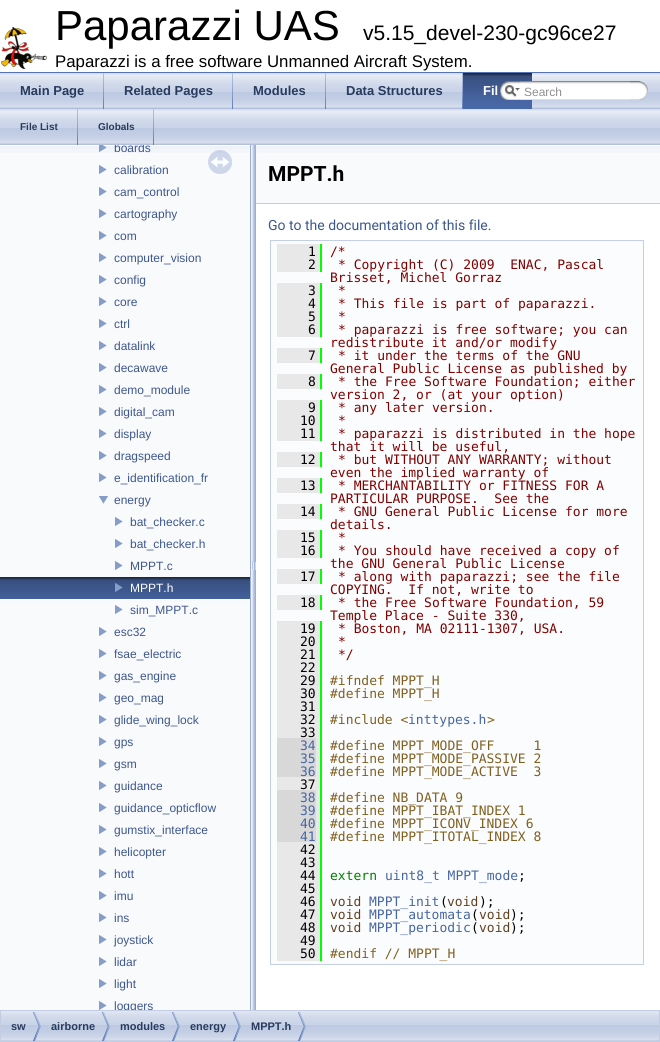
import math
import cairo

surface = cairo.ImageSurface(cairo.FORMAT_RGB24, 660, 1042)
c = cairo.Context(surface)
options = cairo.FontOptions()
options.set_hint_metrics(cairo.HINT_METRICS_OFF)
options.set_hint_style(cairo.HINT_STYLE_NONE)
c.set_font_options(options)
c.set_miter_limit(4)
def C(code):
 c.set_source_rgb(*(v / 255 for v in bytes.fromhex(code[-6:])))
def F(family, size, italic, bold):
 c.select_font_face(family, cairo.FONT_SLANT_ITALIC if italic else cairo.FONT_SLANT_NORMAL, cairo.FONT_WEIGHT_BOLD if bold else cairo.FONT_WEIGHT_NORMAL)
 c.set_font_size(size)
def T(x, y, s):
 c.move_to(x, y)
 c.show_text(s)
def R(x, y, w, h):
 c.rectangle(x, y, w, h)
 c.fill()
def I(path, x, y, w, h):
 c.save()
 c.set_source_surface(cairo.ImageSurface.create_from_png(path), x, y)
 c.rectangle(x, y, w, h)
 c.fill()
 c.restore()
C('ffffff')
c.paint()
C('5373b4')
R(0,72,660,1)
I('1.png',1,27,46,42)
F('Liberation Sans',42,0,0)
C('000000')
T(55,40,'Paparazzi UAS')
F('Liberation Sans',21,0,0)
T(363,40,'v5.15_devel-230-gc96ce27')
F('Liberation Sans',16.8,0,0)
T(55,67,'Paparazzi is a free software Unmanned Aircraft System.')
I('2.png',0,73,660,36)
I('3.png',103,73,1,36)
F('Liberation Sans',13,0,1)
C('283a5d')
T(20,95,'Main Page')
I('3.png',232,73,1,36)
T(124,95,'Related Pages')
I('3.png',325,73,1,36)
T(253,95,'Modules')
I('3.png',462,73,1,36)
T(346,95,'Data Structures')
I('4.png',463,73,69,36)
C('ffffff')
T(483,95,'Fil')
I('5.png',500,81,20,19)
I('6.png',505,85,15,12)
I('7.png',520,81,110,19)
F('Liberation Sans',12,0,0)
C('909090')
T(524,96,'Search')
I('8.png',630,81,18,19)
I('2.png',0,109,660,36)
I('3.png',77,109,1,36)
F('Liberation Sans',10,0,1)
C('283a5d')
T(20,130,'File List')
I('3.png',153,109,1,36)
T(98,130,'Globals')
C('f9fafc')
R(0,153,250,857)
I('9.png',0,145,250,8)
I('10.png',99,145,8,7)
c.save()
c.rectangle(0,145,250,865)
c.clip()
F('Liberation Sans',12,0,0)
C('3d578c')
T(114,152,'boards')
c.restore()
I('11.png',99,165,8,9)
F('Liberation Sans',12,0,0)
C('3d578c')
T(114,174,'calibration')
I('11.png',99,187,8,9)
T(114,196,'cam_control')
I('11.png',99,209,8,9)
T(114,218,'cartography')
I('11.png',99,231,8,9)
T(114,240,'com')
I('11.png',99,253,8,9)
T(114,262,'computer_vision')
I('11.png',99,275,8,9)
T(114,284,'config')
I('11.png',99,297,8,9)
T(114,306,'core')
I('11.png',99,319,8,9)
T(114,328,'ctrl')
I('11.png',99,341,8,9)
T(114,350,'datalink')
I('11.png',99,363,8,9)
T(114,372,'decawave')
I('11.png',99,385,8,9)
T(114,394,'demo_module')
I('11.png',99,407,8,9)
T(114,416,'digital_cam')
I('11.png',99,429,8,9)
T(114,438,'display')
I('11.png',99,451,8,9)
T(114,460,'dragspeed')
I('11.png',99,473,8,9)
T(114,482,'e_identification_fr')
I('12.png',99,496,9,8)
T(114,504,'energy')
I('11.png',115,517,8,9)
T(130,526,'bat_checker.c')
I('11.png',115,539,8,9)
T(130,548,'bat_checker.h')
I('11.png',115,561,8,9)
T(130,570,'MPPT.c')
I('13.png',0,577,250,22)
I('14.png',115,583,8,9)
C('ffffff')
T(130,592,'MPPT.h')
I('11.png',115,605,8,9)
C('3d578c')
T(130,614,'sim_MPPT.c')
I('11.png',99,627,8,9)
T(114,636,'esc32')
I('11.png',99,649,8,9)
T(114,658,'fsae_electric')
I('11.png',99,671,8,9)
T(114,680,'gas_engine')
I('11.png',99,693,8,9)
T(114,702,'geo_mag')
I('11.png',99,715,8,9)
T(114,724,'glide_wing_lock')
I('11.png',99,737,8,9)
T(114,746,'gps')
I('11.png',99,759,8,9)
T(114,768,'gsm')
I('11.png',99,781,8,9)
T(114,790,'guidance')
I('11.png',99,803,8,9)
T(114,812,'guidance_opticflow')
I('11.png',99,825,8,9)
T(114,834,'gumstix_interface')
I('11.png',99,847,8,9)
T(114,856,'helicopter')
I('11.png',99,869,8,9)
T(114,878,'hott')
I('11.png',99,891,8,9)
T(114,900,'imu')
I('11.png',99,913,8,9)
T(114,922,'ins')
I('11.png',99,935,8,9)
T(114,944,'joystick')
I('11.png',99,957,8,9)
T(114,966,'lidar')
I('11.png',99,979,8,9)
T(114,988,'light')
I('11.png',99,1001,8,9)
c.save()
c.rectangle(0,145,250,865)
c.clip()
T(114,1010,'loggers')
c.restore()
I('15.png',208,150,24,24)
I('16.png',250,145,6,865)
C('f9fafc')
R(256,153,404,50)
I('17.png',256,145,404,8)
C('c4cfe5')
R(256,203,404,1)
F('Roboto',21,0,1)
C('000000')
T(268,181,'MPPT.h')
F('Roboto',14,0,0)
C('3d578c')
T(268,230,'Go to the documentation of this file.')
C('fbfcfd')
c.rectangle(270.5,240.5,373,724)
c.fill_preserve()
C('c4cfe5')
c.set_line_width(1)
c.stroke()
C('e8e8e8')
R(277,244,43,28)
F('DejaVu Sans Mono',13,0,0)
C('000000')
T(308,256,'1')
C('00ff00')
R(320,244,2,28)
C('800000')
T(330,256,'/*')
C('000000')
T(308,269,'2')
C('800000')
T(338,269,'* Copyright (C) 2009  ENAC, Pascal')
T(330,282,'Brisset, Michel Gorraz')
C('e8e8e8')
R(277,283,43,54)
C('000000')
T(308,295,'3')
C('00ff00')
R(320,283,2,54)
C('800000')
T(338,295,'*')
C('000000')
T(308,308,'4')
C('800000')
T(338,308,'* This file is part of paparazzi.')
C('000000')
T(308,321,'5')
C('800000')
T(338,321,'*')
C('000000')
T(308,334,'6')
C('800000')
T(338,334,'* paparazzi is free software; you can')
T(330,347,'redistribute it and/or modify')
C('e8e8e8')
R(277,348,43,15)
C('000000')
T(308,360,'7')
C('00ff00')
R(320,348,2,15)
C('800000')
T(338,360,'* it under the terms of the GNU')
T(330,373,'General Public License as published by')
C('e8e8e8')
R(277,374,43,15)
C('000000')
T(308,386,'8')
C('00ff00')
R(320,374,2,15)
C('800000')
T(338,386,'* the Free Software Foundation; either')
T(330,399,'version 2, or (at your option)')
C('e8e8e8')
R(277,400,43,41)
C('000000')
T(308,412,'9')
C('00ff00')
R(320,400,2,41)
C('800000')
T(338,412,'* any later version.')
C('000000')
T(300,425,'10')
C('800000')
T(338,425,'*')
C('000000')
T(300,438,'11')
C('800000')
T(338,438,'* paparazzi is distributed in the hope')
T(330,451,'that it will be useful,')
C('e8e8e8')
R(277,452,43,15)
C('000000')
T(300,464,'12')
C('00ff00')
R(320,452,2,15)
C('800000')
T(338,464,'* but WITHOUT ANY WARRANTY; without')
T(330,477,'even the implied warranty of')
C('e8e8e8')
R(277,478,43,15)
C('000000')
T(300,490,'13')
C('00ff00')
R(320,478,2,15)
C('800000')
T(338,490,'* MERCHANTABILITY or FITNESS FOR A')
T(330,503,'PARTICULAR PURPOSE.  See the')
C('e8e8e8')
R(277,504,43,15)
C('000000')
T(300,516,'14')
C('00ff00')
R(320,504,2,15)
C('800000')
T(338,516,'* GNU General Public License for more')
T(330,529,'details.')
C('e8e8e8')
R(277,530,43,28)
C('000000')
T(300,542,'15')
C('00ff00')
R(320,530,2,28)
C('800000')
T(338,542,'*')
C('000000')
T(300,555,'16')
C('800000')
T(338,555,'* You should have received a copy of')
T(330,568,'the GNU General Public License')
C('e8e8e8')
R(277,569,43,15)
C('000000')
T(300,581,'17')
C('00ff00')
R(320,569,2,15)
C('800000')
T(338,581,'* along with paparazzi; see the file')
T(330,594,'COPYING.  If not, write to')
C('e8e8e8')
R(277,595,43,15)
C('000000')
T(300,607,'18')
C('00ff00')
R(320,595,2,15)
C('800000')
T(338,607,'* the Free Software Foundation, 59')
T(330,620,'Temple Place - Suite 330,')
C('e8e8e8')
R(277,621,43,117)
C('000000')
T(300,633,'19')
C('00ff00')
R(320,621,2,340)
C('800000')
T(338,633,'* Boston, MA 02111-1307, USA.')
C('000000')
T(300,646,'20')
C('800000')
T(338,646,'*')
C('000000')
T(300,659,'21')
C('800000')
T(338,659,'*/')
C('000000')
T(300,672,'22')
T(300,685,'29')
C('806020')
T(330,685,'#ifndef MPPT_H')
C('000000')
T(300,698,'30')
C('806020')
T(330,698,'#define MPPT_H')
C('000000')
T(300,711,'31')
T(300,724,'32')
C('806020')
T(330,724,'#include <')
C('4665a2')
T(408,724,'inttypes.h')
C('806020')
T(487,724,'>')
C('000000')
T(300,737,'33')
C('d8d8d8')
R(277,738,39,39)
C('4665a2')
T(300,750,'34')
C('e8e8e8')
R(316,738,4,39)
C('806020')
T(330,750,'#define MPPT_MODE_OFF     1')
C('4665a2')
T(300,763,'35')
C('806020')
T(330,763,'#define MPPT_MODE_PASSIVE 2')
C('4665a2')
T(300,776,'36')
C('806020')
T(330,776,'#define MPPT_MODE_ACTIVE  3')
C('e8e8e8')
R(277,777,43,13)
C('000000')
T(300,789,'37')
C('d8d8d8')
R(277,790,39,52)
C('4665a2')
T(300,802,'38')
C('e8e8e8')
R(316,790,4,52)
C('806020')
T(330,802,'#define NB_DATA 9')
C('4665a2')
T(300,815,'39')
C('806020')
T(330,815,'#define MPPT_IBAT_INDEX 1')
C('4665a2')
T(300,828,'40')
C('806020')
T(330,828,'#define MPPT_ICONV_INDEX 6')
C('4665a2')
T(300,841,'41')
C('806020')
T(330,841,'#define MPPT_ITOTAL_INDEX 8')
C('e8e8e8')
R(277,842,43,119)
C('000000')
T(300,854,'42')
T(300,867,'43')
T(300,880,'44')
C('008000')
T(330,880,'extern')
C('4665a2')
T(385,880,'uint8_t MPPT_mode')
C('000000')
T(518,880,';')
T(300,893,'45')
T(300,906,'46')
C('604020')
T(330,906,'void')
C('4665a2')
T(369,906,'MPPT_init')
C('000000')
T(440,906,'(')
C('604020')
T(447,906,'void')
C('000000')
T(479,906,');')
T(300,919,'47')
C('604020')
T(330,919,'void')
C('4665a2')
T(369,919,'MPPT_automata')
C('000000')
T(471,919,'(')
C('604020')
T(479,919,'void')
C('000000')
T(510,919,');')
T(300,932,'48')
C('604020')
T(330,932,'void')
C('4665a2')
T(369,932,'MPPT_periodic')
C('000000')
T(471,932,'(')
C('604020')
T(479,932,'void')
C('000000')
T(510,932,');')
T(300,945,'49')
T(300,958,'50')
C('806020')
T(330,958,'#endif // MPPT_H')
I('18.png',1,1011,658,30)
c.rectangle(.5,1010.5,659,31)
C('c2cde4')
c.stroke()
I('19.png',33,1012,8,29)
F('Liberation Sans',11,0,1)
C('283a5d')
T(11,1030,'sw')
I('19.png',102,1012,8,29)
T(51,1030,'airborne')
I('19.png',172,1012,8,29)
T(120,1030,'modules')
I('19.png',233,1012,8,29)
T(190,1030,'energy')
I('19.png',298,1012,8,29)
T(251,1030,'MPPT.h')
surface.write_to_png('o.png')
